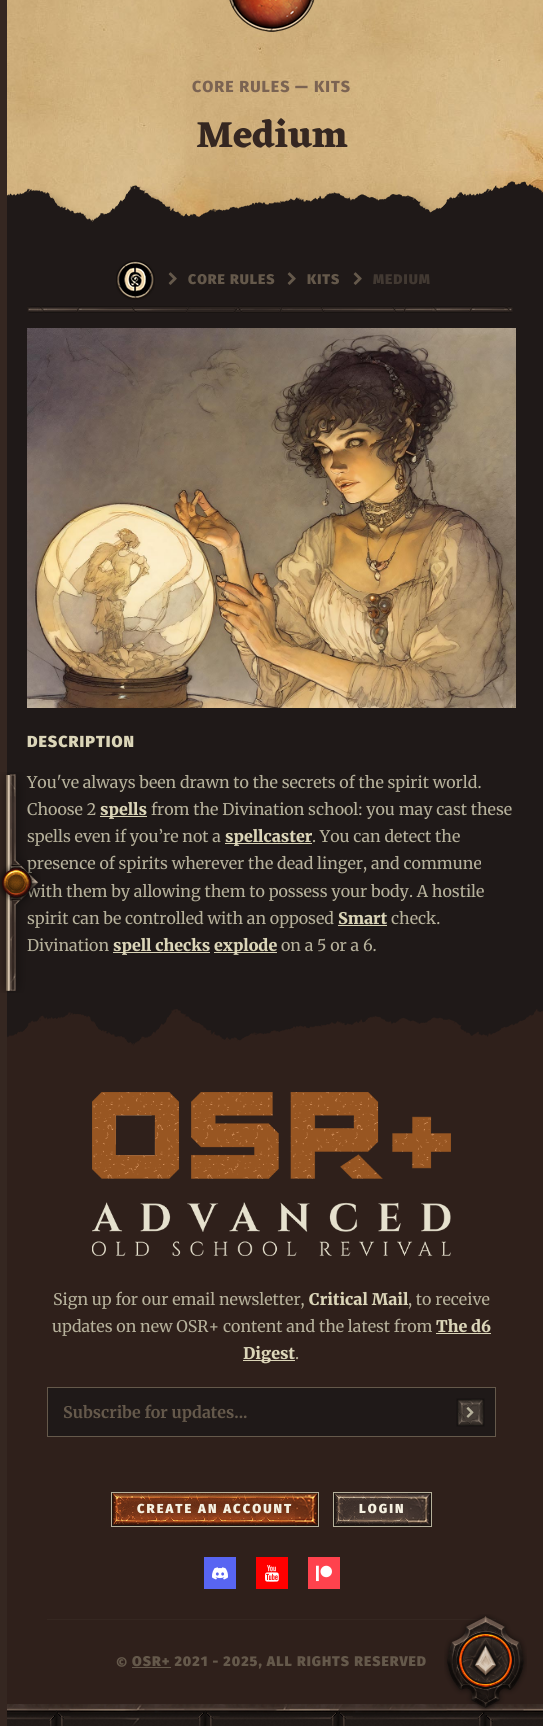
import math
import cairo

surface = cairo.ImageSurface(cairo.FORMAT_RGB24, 543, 1726)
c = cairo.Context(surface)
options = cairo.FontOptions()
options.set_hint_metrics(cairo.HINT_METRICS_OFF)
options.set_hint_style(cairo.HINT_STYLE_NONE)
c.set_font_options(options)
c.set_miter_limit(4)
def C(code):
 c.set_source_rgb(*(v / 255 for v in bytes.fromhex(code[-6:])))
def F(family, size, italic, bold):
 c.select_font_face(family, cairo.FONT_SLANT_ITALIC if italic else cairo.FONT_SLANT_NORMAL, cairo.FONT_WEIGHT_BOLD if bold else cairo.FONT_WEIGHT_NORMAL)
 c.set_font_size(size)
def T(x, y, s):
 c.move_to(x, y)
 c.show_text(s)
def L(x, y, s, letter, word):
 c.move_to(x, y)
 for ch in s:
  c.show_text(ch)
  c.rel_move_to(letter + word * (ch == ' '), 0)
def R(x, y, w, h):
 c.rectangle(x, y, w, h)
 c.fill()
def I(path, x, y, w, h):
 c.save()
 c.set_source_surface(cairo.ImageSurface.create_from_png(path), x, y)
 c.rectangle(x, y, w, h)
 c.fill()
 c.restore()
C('1f1918')
c.paint()
C('352721')
R(0,0,7,1726)
F('Merriweather',16,0,0)
C('b6b19b')
T(27,788,'You\'ve always been drawn to the secrets of the spirit world.')
T(27,815,'Choose 2')
T(27,842,'spells even if you’re not a')
T(27,869,'presence of spirits wherever the dead linger, and commune')
T(27,897,'with them by allowing them to possess your body. A hostile')
T(27,924,'spirit can be controlled with an opposed')
T(27,951,'Divination')
I('1.png',0,772,41,221)
I('3.png',7,0,536,222)
I('2.png',229,0,86,32)
F('Fira Sans ExtraBold',16,0,0)
C('7b6352')
L(192,92,'CORE RULES',1,0)
F('Fira Sans Black',16,0,0)
L(295,92,'—',1,0)
F('Fira Sans ExtraBold',16,0,0)
L(314,92,'KITS',1,0)
F('Eczar',38,0,1)
C('352721')
T(196,147,'Medium')
I('4.png',7,181,536,48)
I('5.png',116,260,39,40)
I('6.png',168,272,9,13)
F('Fira Sans Black',14,0,0)
C('65594b')
L(188,284,'CORE RULES',1,0)
I('6.png',287,272,9,13)
L(307,284,'KITS',1,0)
I('6.png',353,272,9,13)
C('423932')
L(373,284,'MEDIUM',1,0)
I('7.png',39,306,465,7)
I('8.png',27,306,12,7)
I('9.png',504,306,9,7)
I('10.png',27,328,489,380)
F('Fira Sans Black',16,0,0)
C('dbd5b8')
L(27,747,'DESCRIPTION',1,0)
R(100,816,47,1)
F('Merriweather Black',16,0,0)
T(100,815,'spells')
F('Merriweather',16,0,0)
C('b6b19b')
T(151,815,'from the Divination school: you may cast these')
C('dbd5b8')
R(225,843,87,1)
F('Merriweather Black',16,0,0)
T(225,842,'spellcaster')
F('Merriweather',16,0,0)
C('b6b19b')
T(312,842,'. You can detect the')
F('Merriweather Black',16,0,0)
C('dbd5b8')
T(338,924,'Smart')
R(338,925,49,1)
F('Merriweather',16,0,0)
C('b6b19b')
T(391,924,'check.')
C('dbd5b8')
R(113,952,97,1)
F('Merriweather Black',16,0,0)
T(113,951,'spell checks')
R(214,952,63,1)
T(214,951,'explode')
F('Merriweather',16,0,0)
C('b6b19b')
T(281,951,'on a 5 or a 6.')
I('11.png',7,1009,536,53)
C('2f201b')
R(7,1062,536,642)
I('12.png',92,1092,359,164)
C('b6b19b')
T(53,1305,'Sign up for our email newsletter,')
F('Merriweather Black',16,0,0)
C('dbd5b8')
T(309,1305,'Critical Mail')
F('Merriweather',16,0,0)
C('b6b19b')
T(408,1305,', to receive')
T(52,1332,'updates on new OSR+ content and the latest from')
F('Merriweather Black',16,0,0)
C('dbd5b8')
T(436,1332,'The d6')
R(436,1333,55,1)
R(243,1360,52,1)
T(243,1359,'Digest')
F('Merriweather',16,0,0)
C('b6b19b')
T(295,1359,'.')
C('1f1918')
c.rectangle(47.5,1387.5,448,49)
c.fill_preserve()
C('65594b')
c.set_line_width(1)
c.stroke()
F('Merriweather',16,0,1)
T(63,1418,'Subscribe for updates...')
I('13.png',456,1398,29,29)
I('14.png',466,1407,8,11)
I('15.png',112,1525,206,1)
c.rectangle(111.5,1492.5,207,34)
C('b6b19b')
c.stroke()
I('16.png',112,1493,36,32)
I('17.png',148,1493,170,32)
F('Fira Sans Black',13,0,0)
C('f5f1e1')
L(137,1513,'CREATE AN ACCOUNT',2,0)
I('18.png',295,1493,23,33)
I('19.png',334,1493,97,33)
c.rectangle(333.5,1492.5,98,34)
C('b6b19b')
c.stroke()
I('20.png',334,1493,36,32)
C('f5f1e1')
L(359,1513,'LOGIN',2,0)
I('21.png',408,1493,23,33)
C('5865f2')
R(204,1557,32,32)
I('22.png',212,1567,16,13)
C('ff0000')
R(256,1557,32,32)
I('23.png',265,1565,14,17)
C('ff424d')
R(308,1557,32,32)
I('24.png',316,1565,16,17)
C('352721')
R(47,1619,449,1)
F('Fira Sans Black',14,0,0)
C('65594b')
L(116,1668,'©',1,0)
R(132,1667,39,1)
L(132,1666,'OSR+ 2021 - 2025, ALL RIGHTS RESERVED',1,0)
I('25.png',7,1704,536,22)
I('26.png',49,1714,7,12)
I('27.png',56,1710,15,16)
I('28.png',198,1712,7,14)
I('29.png',205,1710,15,16)
I('30.png',330,1712,8,14)
I('31.png',338,1710,15,16)
I('32.png',477,1712,8,14)
I('33.png',485,1715,15,11)
I('34.png',444,1614,83,97)
surface.write_to_png('o.png')
